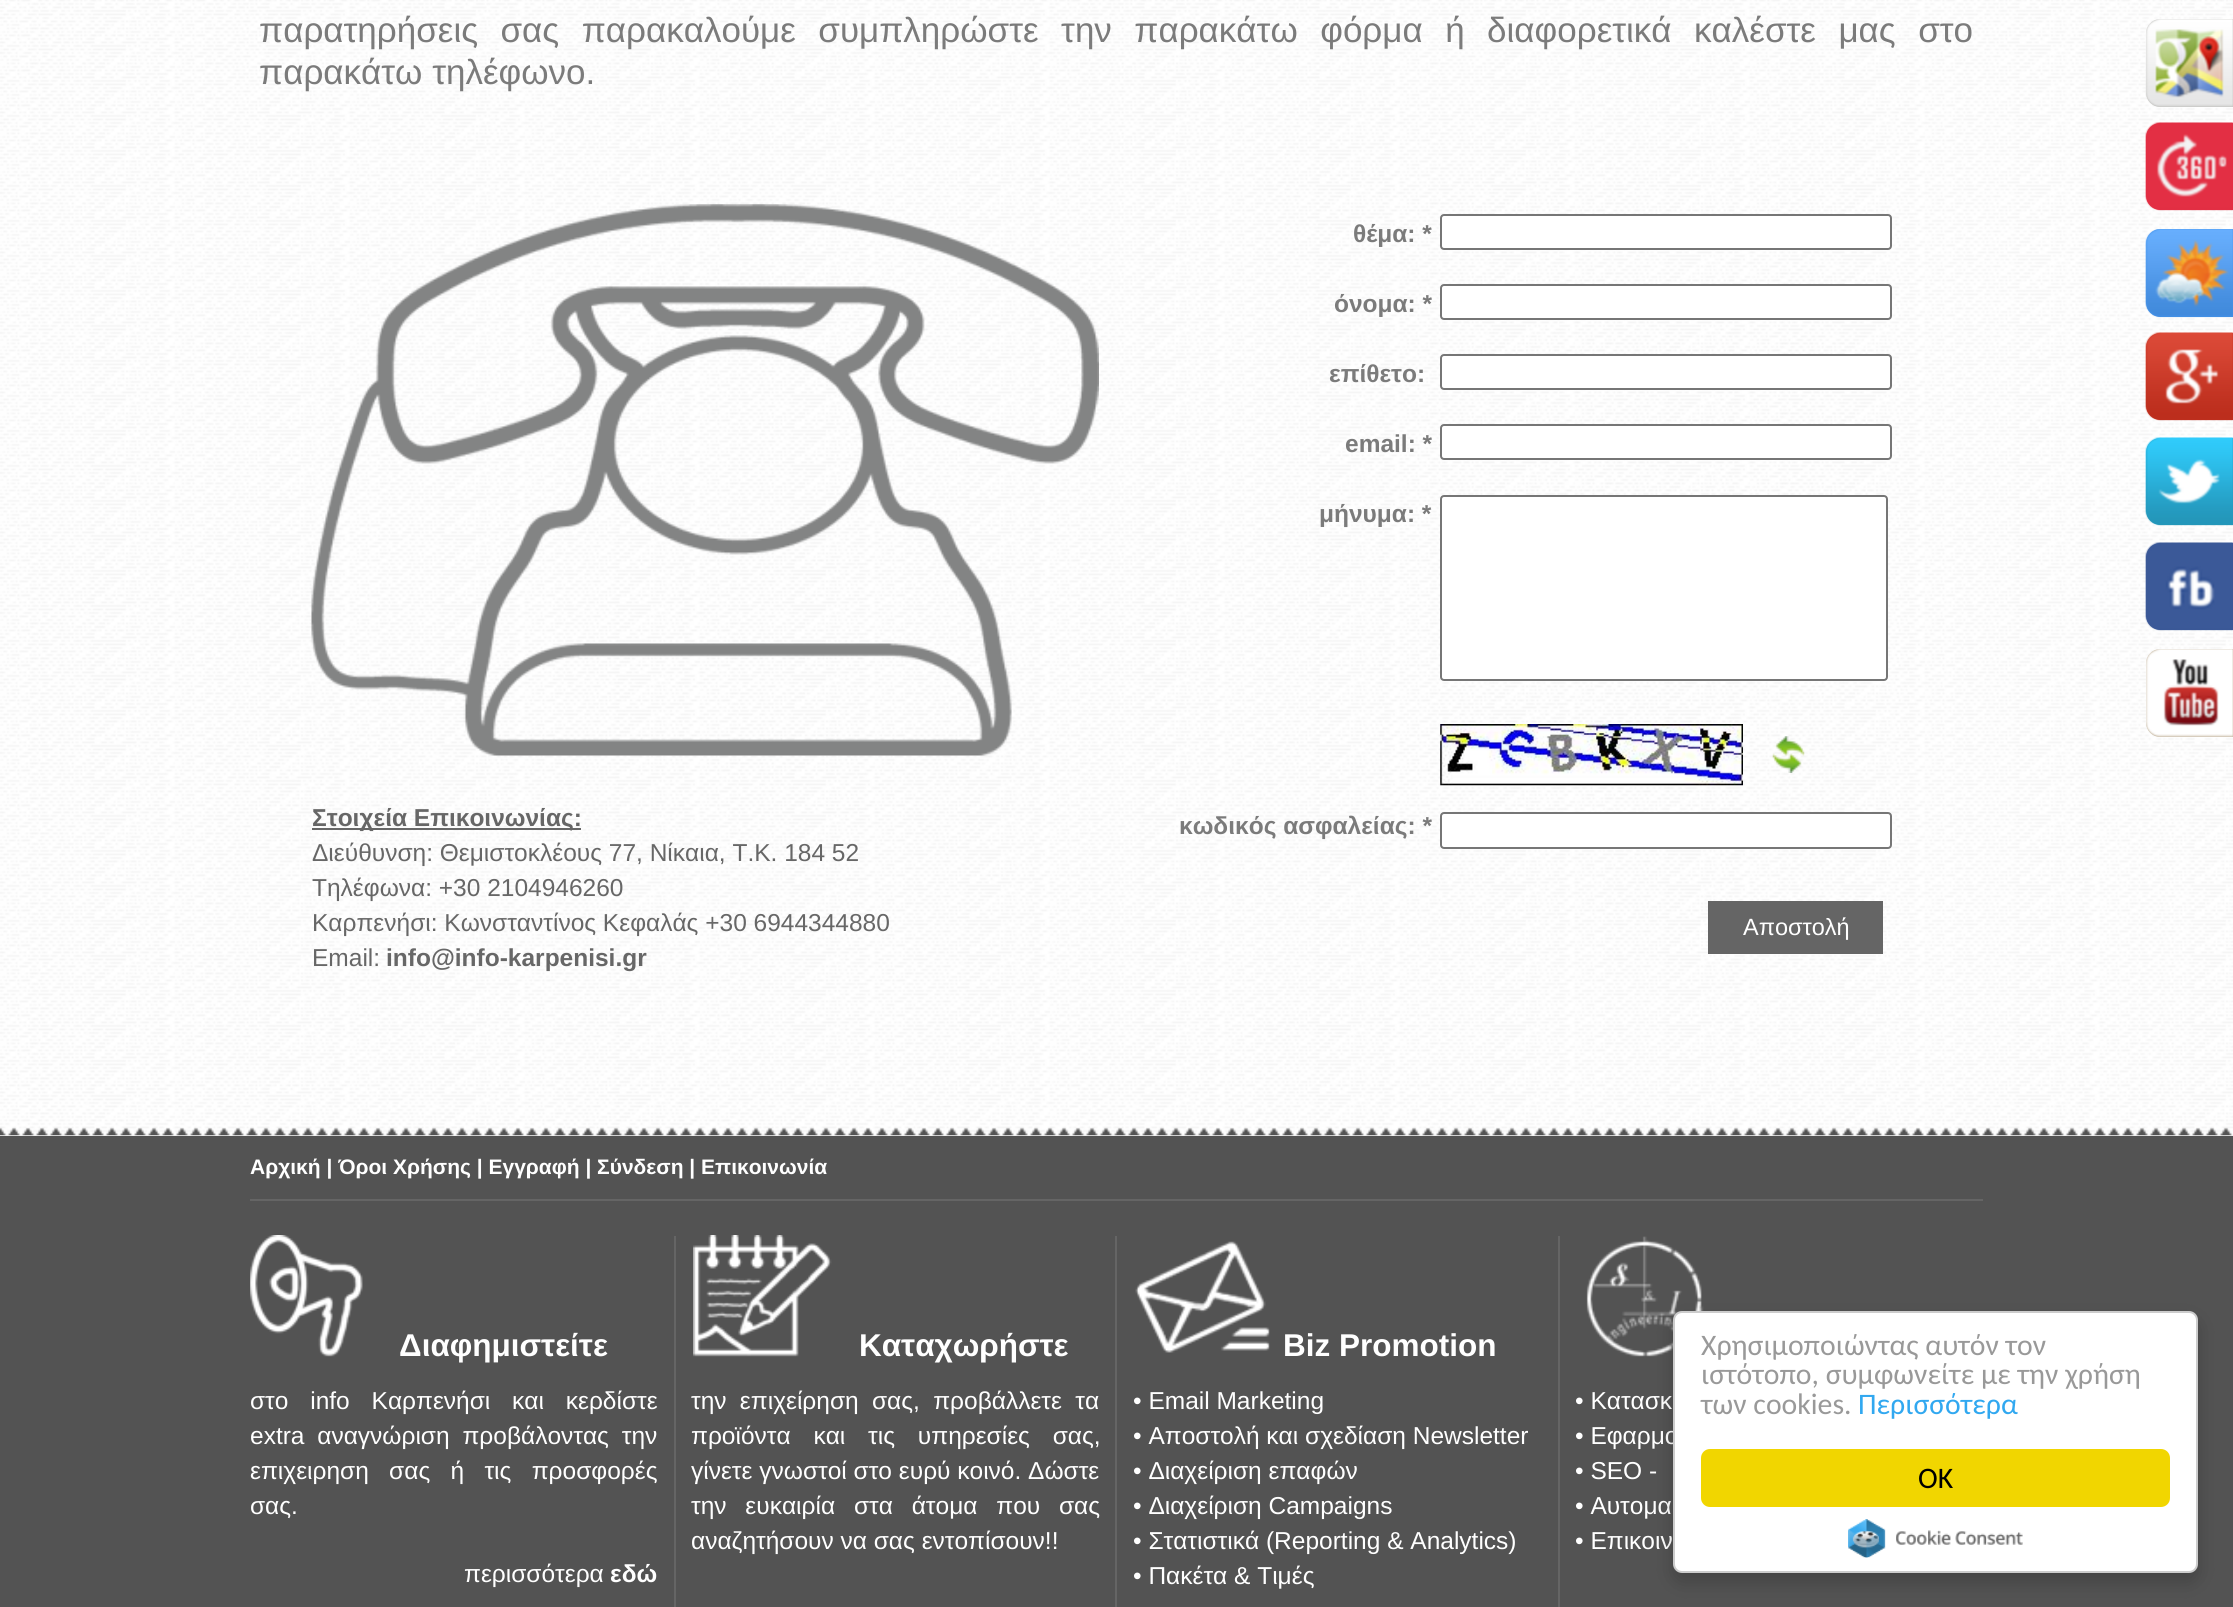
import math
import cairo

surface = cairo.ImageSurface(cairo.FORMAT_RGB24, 2233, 1607)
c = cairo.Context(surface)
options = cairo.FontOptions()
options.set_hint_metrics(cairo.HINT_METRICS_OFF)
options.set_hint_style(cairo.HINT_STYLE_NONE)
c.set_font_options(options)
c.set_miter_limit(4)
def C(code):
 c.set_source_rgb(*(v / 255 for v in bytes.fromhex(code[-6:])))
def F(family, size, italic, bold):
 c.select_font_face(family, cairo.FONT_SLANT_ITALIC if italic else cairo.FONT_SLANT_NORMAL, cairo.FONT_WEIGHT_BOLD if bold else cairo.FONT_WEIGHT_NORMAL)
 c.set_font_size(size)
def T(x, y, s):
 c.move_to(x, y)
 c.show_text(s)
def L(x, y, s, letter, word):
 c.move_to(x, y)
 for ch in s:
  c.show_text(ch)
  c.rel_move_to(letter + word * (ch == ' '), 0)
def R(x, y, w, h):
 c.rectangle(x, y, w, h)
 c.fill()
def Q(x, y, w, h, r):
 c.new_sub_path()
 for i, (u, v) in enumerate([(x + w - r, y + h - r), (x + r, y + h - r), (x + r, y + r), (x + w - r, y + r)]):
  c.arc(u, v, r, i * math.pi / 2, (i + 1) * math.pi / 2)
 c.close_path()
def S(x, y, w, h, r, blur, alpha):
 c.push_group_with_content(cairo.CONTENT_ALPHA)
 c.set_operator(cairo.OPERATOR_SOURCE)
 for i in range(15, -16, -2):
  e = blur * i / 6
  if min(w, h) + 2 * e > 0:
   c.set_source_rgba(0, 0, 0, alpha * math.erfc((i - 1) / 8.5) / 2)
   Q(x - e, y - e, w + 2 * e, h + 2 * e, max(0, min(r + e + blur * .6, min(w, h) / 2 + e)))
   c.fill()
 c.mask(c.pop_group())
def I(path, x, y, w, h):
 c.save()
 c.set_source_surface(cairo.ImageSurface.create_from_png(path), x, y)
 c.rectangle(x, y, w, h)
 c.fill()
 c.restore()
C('ffffff')
c.paint()
I('1.png',0,0,2233,1136)
F('Liberation Sans',35,0,0)
C('7b7b7b')
L(259,42,'παρατηρήσεις σας παρακαλούμε συμπληρώστε την παρακάτω φόρμα ή διαφορετικά καλέστε μας στο',0,12.75)
T(259,84,'παρακάτω τηλέφωνο.')
I('2.png',311,204,788,552)
C('676767')
R(312,828,269,2)
F('Liberation Sans',24.5,0,1)
T(312,826,'Στοιχεία Επικοινωνίας:')
F('Liberation Sans',24.5,0,0)
T(312,861,'Διεύθυνση: Θεμιστοκλέους 77, Νίκαια, Τ.Κ. 184 52')
T(312,896,'Τηλέφωνα: +30 2104946260')
T(312,931,'Καρπενήσι: Κωνσταντίνος Κεφαλάς +30 6944344880')
T(312,966,'Email:')
F('Liberation Sans',24.5,0,1)
T(386,966,'info@info-karpenisi.gr')
C('7b7b7b')
T(1353,242,'θέμα: *')
C('ffffff')
Q(1441,215,450,34,3)
c.fill_preserve()
C('767676')
c.stroke()
C('7b7b7b')
T(1334,312,'όνομα: *')
C('ffffff')
Q(1441,285,450,34,3)
c.fill_preserve()
C('767676')
c.stroke()
C('7b7b7b')
T(1329,382,'επίθετο:')
C('ffffff')
Q(1441,355,450,34,3)
c.fill_preserve()
C('767676')
c.stroke()
C('7b7b7b')
T(1345,452,'email: *')
C('ffffff')
Q(1441,425,450,34,3)
c.fill_preserve()
C('767676')
c.stroke()
C('7b7b7b')
T(1319,522,'μήνυμα: *')
C('ffffff')
Q(1441,496,446,184,3)
c.fill_preserve()
C('767676')
c.stroke()
C('7b7b7b')
T(1179,834,'κωδικός ασφαλείας: *')
I('3.png',1440,724,303,62)
I('4.png',1772,736,33,37)
C('ffffff')
Q(1441,813,450,35,3)
c.fill_preserve()
C('767676')
c.stroke()
C('656565')
R(1708,901,175,53)
F('Liberation Sans',23.5,0,0)
C('ffffff')
T(1743,935,'Αποστολή')
I('5.png',0,1127,2233,9)
C('535353')
R(0,1136,2233,471)
F('Liberation Sans',21,0,1)
C('ffffff')
T(250,1174,'Αρχική | Όροι Χρήσης | Εγγραφή | Σύνδεση | Επικοινωνία')
C('656565')
R(250,1199,1733,2)
R(674,1236,2,371)
I('6.png',250,1235,113,122)
F('Liberation Sans',31.5,0,1)
C('ffffff')
T(399,1356,'Διαφημιστείτε')
F('Liberation Sans',24.5,0,0)
L(250,1409,'στο info Καρπενήσι και κερδίστε',0,15)
L(250,1444,'extra αναγνώριση προβάλοντας την',0,6)
L(250,1479,'επιχειρηση σας ή τις προσφορές',0,13.5)
T(250,1514,'σας.')
T(464,1582,'περισσότερα')
F('Liberation Sans',24.5,0,1)
T(610,1582,'εδώ')
C('656565')
R(1115,1236,2,371)
I('7.png',693,1235,139,122)
F('Liberation Sans',31.5,0,1)
C('ffffff')
T(859,1356,'Καταχωρήστε')
F('Liberation Sans',24.5,0,0)
L(691,1409,'την επιχείρηση σας, προβάλλετε τα',0,6.5)
L(691,1444,'προϊόντα και τις υπηρεσίες σας,',0,16)
T(691,1479,'γίνετε γνωστοί στο ευρύ κοινό. Δώστε')
L(691,1514,'την ευκαιρία στα άτομα που σας',0,12)
T(691,1549,'αναζητήσουν να σας εντοπίσουν!!')
C('656565')
R(1558,1236,2,371)
I('8.png',1135,1241,135,112)
F('Liberation Sans',31.5,0,1)
C('ffffff')
T(1283,1356,'Biz Promotion')
F('Liberation Sans',24.5,0,0)
T(1133,1409,'• Email Marketing')
T(1133,1444,'• Αποστολή και σχεδίαση Newsletter')
T(1133,1479,'• Διαχείριση επαφών')
T(1133,1514,'• Διαχείριση Campaigns')
T(1133,1549,'• Στατιστικά (Reporting & Analytics)')
T(1133,1584,'• Πακέτα & Τιμές')
I('9.png',1586,1236,118,121)
T(1575,1409,'• Κατασκ')
T(1575,1444,'• Εφαρμο')
T(1575,1479,'• SEO -')
T(1575,1514,'• Αυτομα')
T(1575,1549,'• Επικοιν')
C('bfbfbc')
c.new_path()
c.move_to(2160,19)
c.line_to(2233,19)
c.line_to(2233,107)
c.line_to(2160,107)
c.curve_to(2152.5,107,2146,100.5,2146,93)
c.line_to(2146,33)
c.curve_to(2146,25.5,2152.5,19,2160,19)
c.close_path()
c.fill()
I('10.png',2145,19,88,88)
C('e32f44')
c.new_path()
c.move_to(2160,123)
c.line_to(2233,123)
c.line_to(2233,210)
c.line_to(2160,210)
c.curve_to(2152.5,210,2146,203.5,2146,196)
c.line_to(2146,137)
c.curve_to(2146,129.5,2152.5,123,2160,123)
c.close_path()
c.fill()
I('11.png',2145,122,88,89)
C('4593ea')
c.new_path()
c.move_to(2160,229)
c.line_to(2233,229)
c.line_to(2233,317)
c.line_to(2160,317)
c.curve_to(2152.5,317,2146,310.5,2146,303)
c.line_to(2146,243)
c.curve_to(2146,235.5,2152.5,229,2160,229)
c.close_path()
c.fill()
I('12.png',2145,229,88,89)
C('c13221')
c.new_path()
c.move_to(2160,333)
c.line_to(2233,333)
c.line_to(2233,420)
c.line_to(2160,420)
c.curve_to(2152.5,420,2146,413.5,2146,406)
c.line_to(2146,347)
c.curve_to(2146,339.5,2152.5,333,2160,333)
c.close_path()
c.fill()
I('13.png',2145,332,88,89)
C('2498bb')
c.new_path()
c.move_to(2160,438)
c.line_to(2233,438)
c.line_to(2233,525)
c.line_to(2160,525)
c.curve_to(2152.5,525,2146,518.5,2146,511)
c.line_to(2146,452)
c.curve_to(2146,444.5,2152.5,438,2160,438)
c.close_path()
c.fill()
I('14.png',2145,437,88,89)
C('3b5998')
c.new_path()
c.move_to(2160,543)
c.line_to(2233,543)
c.line_to(2233,630)
c.line_to(2160,630)
c.curve_to(2152.5,630,2146,623.5,2146,616)
c.line_to(2146,557)
c.curve_to(2146,549.5,2152.5,543,2160,543)
c.close_path()
c.fill()
I('15.png',2145,542,88,89)
C('beae95')
c.new_path()
c.move_to(2160,649)
c.line_to(2233,649)
c.line_to(2233,737)
c.line_to(2160,737)
c.curve_to(2152.5,737,2146,730.5,2146,723)
c.line_to(2146,663)
c.curve_to(2146,655.5,2152.5,649,2160,649)
c.close_path()
c.fill()
I('16.png',2146,649,87,88)
C('000000')
S(1673,1320,525,262,9,9,.2)
C('ffffff')
Q(1674,1312,523,260,8)
c.fill_preserve()
C('cccccc')
c.stroke()
F('Carlito',29.75,0,0)
C('999999')
T(1701,1355,'Χρησιμοποιώντας αυτόν τον')
T(1701,1384,'ιστότοπο, συμφωνείτε με την χρήση')
T(1701,1414,'των cookies.')
C('31a8f0')
T(1858,1414,'Περισσότερα')
C('f1d600')
Q(1701,1449,469,58,9)
c.fill()
C('000000')
T(1918,1488,'OK')
I('17.png',1848,1519,175,39)
surface.write_to_png('o.png')
